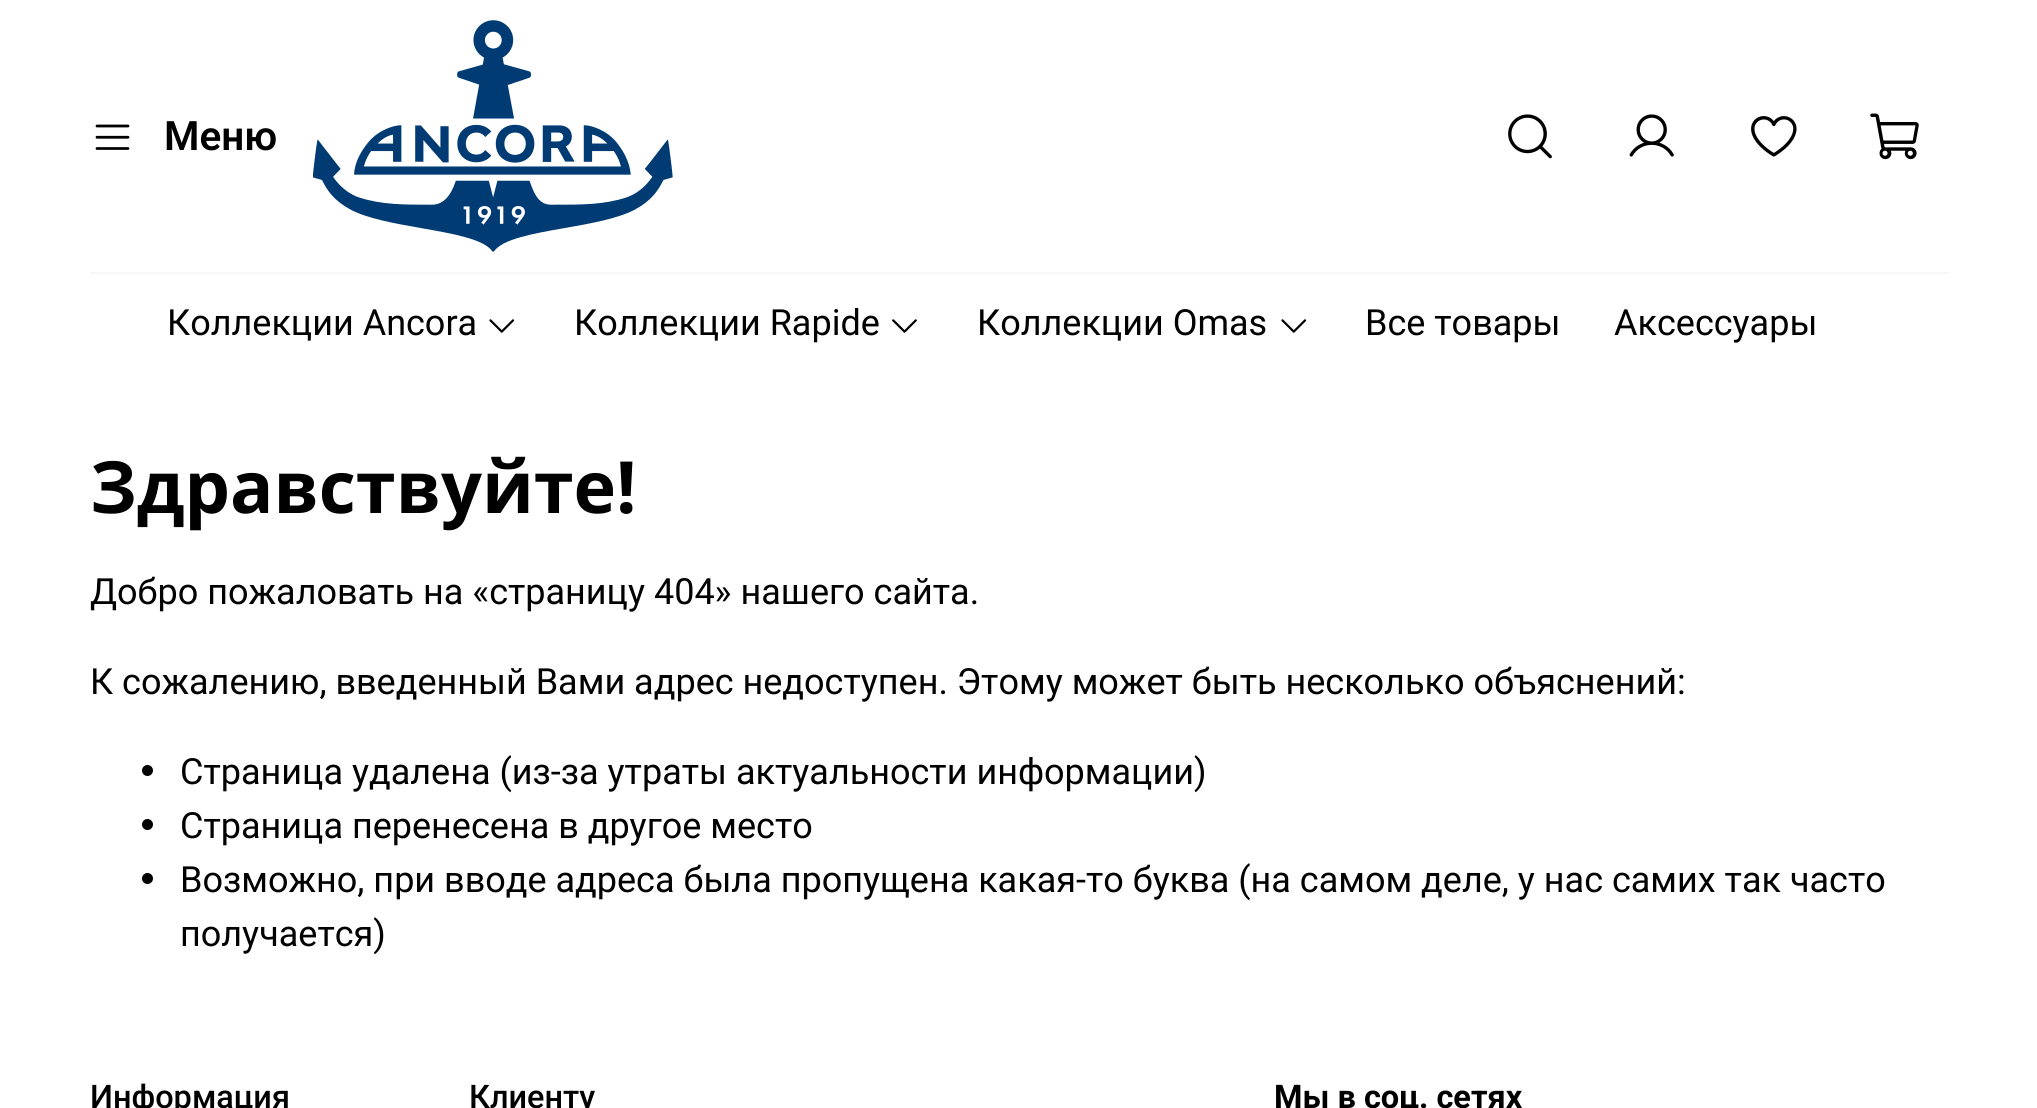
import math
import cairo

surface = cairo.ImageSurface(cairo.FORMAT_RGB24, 2037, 1108)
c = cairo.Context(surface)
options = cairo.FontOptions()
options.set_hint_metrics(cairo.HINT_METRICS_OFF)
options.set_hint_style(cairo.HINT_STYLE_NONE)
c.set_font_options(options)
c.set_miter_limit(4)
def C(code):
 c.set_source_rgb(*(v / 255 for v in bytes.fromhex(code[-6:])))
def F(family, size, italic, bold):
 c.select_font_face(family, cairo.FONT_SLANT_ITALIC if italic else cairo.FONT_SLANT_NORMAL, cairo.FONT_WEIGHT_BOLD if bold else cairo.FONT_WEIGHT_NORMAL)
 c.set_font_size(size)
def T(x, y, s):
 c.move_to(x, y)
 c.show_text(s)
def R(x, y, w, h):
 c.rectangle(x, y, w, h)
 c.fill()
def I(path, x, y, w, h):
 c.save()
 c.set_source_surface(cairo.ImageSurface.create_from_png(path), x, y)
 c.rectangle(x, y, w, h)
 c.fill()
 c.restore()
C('ffffff')
c.paint()
I('1.png',95,124,35,26)
F('Roboto SemiBold',40.5,0,0)
C('000000')
T(164,150,'Меню')
I('2.png',313,20,360,232)
I('3.png',1508,114,44,45)
I('4.png',1629,114,45,43)
I('5.png',1751,116,46,41)
I('6.png',1870,113,49,47)
C('f7f7f7')
R(90,272,1859,2)
F('Roboto',36,0,0)
C('000000')
T(167,335,'Коллекции Ancora')
I('7.png',489,319,26,14)
T(574,335,'Коллекции Rapide')
I('8.png',892,319,25,14)
T(977,335,'Коллекции Omas')
I('7.png',1281,319,26,14)
T(1365,335,'Все товары')
T(1614,335,'Аксессуары')
F('Open Sans',72,0,1)
T(90,513,'Здравствуйте!')
F('Roboto',36,0,0)
T(90,604,'Добро пожаловать на «страницу 404» нашего сайта.')
T(90,694,'К сожалению, введенный Вами адрес недоступен. Этому может быть несколько объяснений:')
c.new_path()
c.arc(147.5,770.5,5.5,0,2 * math.pi)
c.fill()
T(180,784,'Страница удалена (из-за утраты актуальности информации)')
c.new_path()
c.arc(147.5,824.5,5.5,0,2 * math.pi)
c.fill()
T(180,838,'Страница перенесена в другое место')
c.new_path()
c.arc(147.5,878.5,5.5,0,2 * math.pi)
c.fill()
T(180,892,'Возможно, при вводе адреса была пропущена какая-то буква (на самом деле, у нас самих так часто')
T(180,946,'получается)')
F('Roboto Medium',32.5,0,0)
T(90,1108,'Информация')
T(469,1108,'Клиенту')
F('Roboto',32.5,0,1)
T(1274,1108,'Мы в соц. сетях')
surface.write_to_png('o.png')
